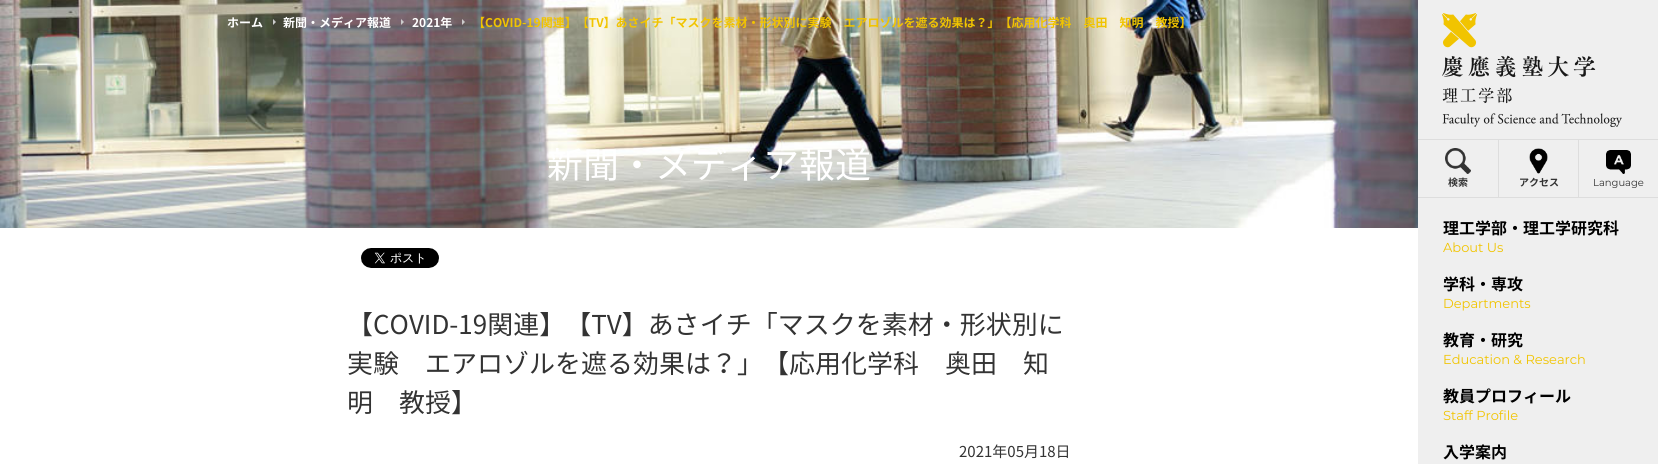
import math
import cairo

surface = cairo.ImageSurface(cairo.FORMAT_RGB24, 1658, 464)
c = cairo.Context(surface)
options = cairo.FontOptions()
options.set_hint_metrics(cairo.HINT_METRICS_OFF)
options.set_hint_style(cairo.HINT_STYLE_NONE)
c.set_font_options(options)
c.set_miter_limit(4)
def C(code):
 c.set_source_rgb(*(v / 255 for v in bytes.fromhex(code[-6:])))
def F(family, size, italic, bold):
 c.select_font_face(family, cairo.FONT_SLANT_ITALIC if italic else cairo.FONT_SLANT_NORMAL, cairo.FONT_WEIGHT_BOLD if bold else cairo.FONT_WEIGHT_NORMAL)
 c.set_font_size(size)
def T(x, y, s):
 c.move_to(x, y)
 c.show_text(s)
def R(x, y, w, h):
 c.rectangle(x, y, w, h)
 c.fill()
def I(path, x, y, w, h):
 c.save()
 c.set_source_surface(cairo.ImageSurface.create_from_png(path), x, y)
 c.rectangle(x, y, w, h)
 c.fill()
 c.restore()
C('ffffff')
c.paint()
I('1.png',0,0,1418,228)
F('Noto Sans JP',12,0,1)
C('ffffff')
T(227,27,'ホーム')
C('cccccc')
c.new_path()
c.move_to(273,25)
c.line_to(273,19)
c.line_to(276,22)
c.close_path()
c.fill()
C('ffffff')
T(283,27,'新聞・メディア報道')
C('cccccc')
c.new_path()
c.move_to(401,25)
c.line_to(401,19)
c.line_to(404,22)
c.close_path()
c.fill()
C('ffffff')
T(412,27,'2021年')
C('cccccc')
c.new_path()
c.move_to(462,25)
c.line_to(462,19)
c.line_to(465,22)
c.close_path()
c.fill()
C('f1c400')
T(473,27,'【COVID-19関連】【TV】あさイチ「マスクを素材・形状別に実験　エアロゾルを遮る効果は？」【応用化学科　奥田　知明　教授】')
F('Noto Sans JP',36,0,0)
C('ffffff')
T(547,178,'新聞・メディア報道')
I('2.png',361,248,78,20)
F('Noto Sans JP',26,0,0)
C('333333')
T(347,334,'【COVID-19関連】【TV】あさイチ「マスクを素材・形状別に')
T(347,373,'実験　エアロゾルを遮る効果は？」【応用化学科　奥田　知')
T(347,412,'明　教授】')
F('Noto Sans JP',15,0,0)
T(959,457,'2021年05月18日')
C('efefef')
R(1418,0,240,464)
C('dddddd')
R(1418,139,240,1)
I('3.png',1442,13,180,114)
I('4.png',1445,148,26,26)
F('Noto Sans JP',10,0,1)
C('333333')
T(1448,186,'検索')
C('dddddd')
R(1498,140,1,57)
I('5.png',1529,148,19,26)
C('333333')
T(1519,186,'アクセス')
C('dddddd')
R(1578,140,1,57)
I('6.png',1606,150,25,24)
F('Montserrat',10,0,0)
C('333333')
T(1593,186,'Language')
C('dddddd')
R(1418,197,240,1)
F('Noto Sans JP',16,0,1)
C('000000')
T(1443,234,'理工学部・理工学研究科')
F('Montserrat',13,0,0)
C('f1c400')
T(1443,252,'About Us')
F('Noto Sans JP',16,0,1)
C('000000')
T(1443,290,'学科・専攻')
F('Montserrat',13,0,0)
C('f1c400')
T(1443,308,'Departments')
F('Noto Sans JP',16,0,1)
C('000000')
T(1443,346,'教育・研究')
F('Montserrat',13,0,0)
C('f1c400')
T(1443,364,'Education & Research')
F('Noto Sans JP',16,0,1)
C('000000')
T(1443,402,'教員プロフィール')
F('Montserrat',13,0,0)
C('f1c400')
T(1443,420,'Staff Profile')
F('Noto Sans JP',16,0,1)
C('000000')
T(1443,458,'入学案内')
surface.write_to_png('o.png')
